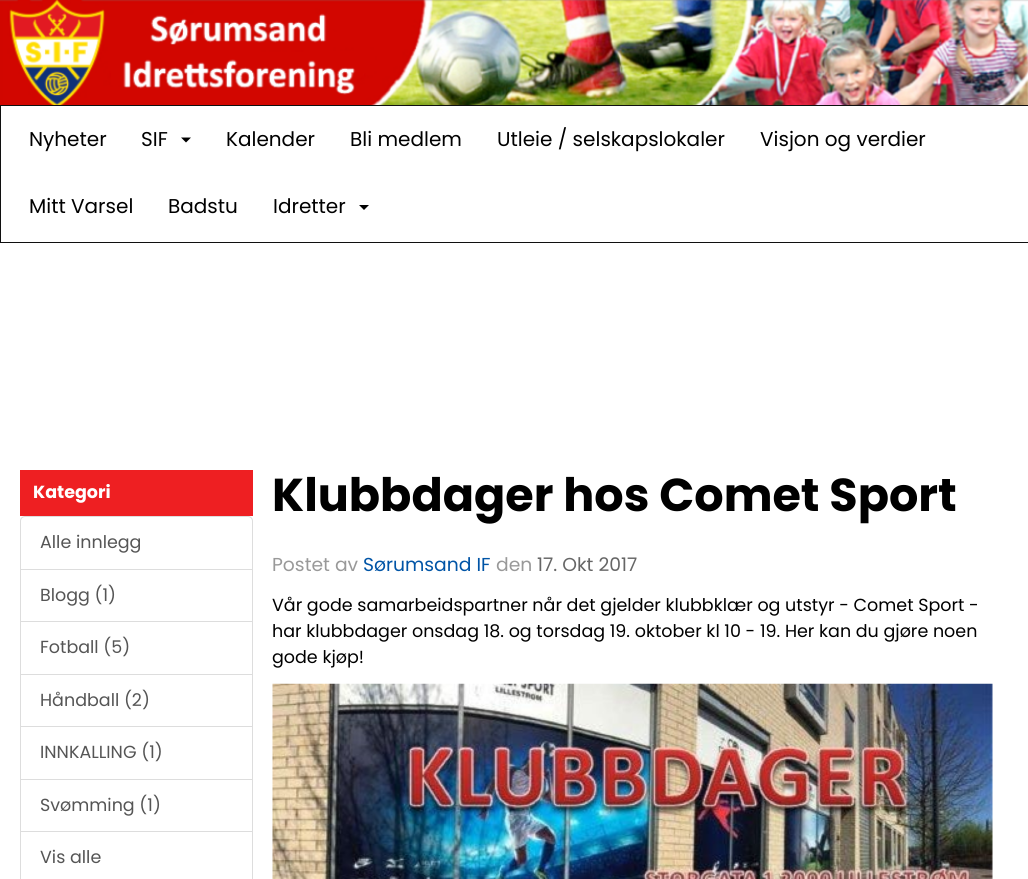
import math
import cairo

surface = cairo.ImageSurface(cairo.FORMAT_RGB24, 1028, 879)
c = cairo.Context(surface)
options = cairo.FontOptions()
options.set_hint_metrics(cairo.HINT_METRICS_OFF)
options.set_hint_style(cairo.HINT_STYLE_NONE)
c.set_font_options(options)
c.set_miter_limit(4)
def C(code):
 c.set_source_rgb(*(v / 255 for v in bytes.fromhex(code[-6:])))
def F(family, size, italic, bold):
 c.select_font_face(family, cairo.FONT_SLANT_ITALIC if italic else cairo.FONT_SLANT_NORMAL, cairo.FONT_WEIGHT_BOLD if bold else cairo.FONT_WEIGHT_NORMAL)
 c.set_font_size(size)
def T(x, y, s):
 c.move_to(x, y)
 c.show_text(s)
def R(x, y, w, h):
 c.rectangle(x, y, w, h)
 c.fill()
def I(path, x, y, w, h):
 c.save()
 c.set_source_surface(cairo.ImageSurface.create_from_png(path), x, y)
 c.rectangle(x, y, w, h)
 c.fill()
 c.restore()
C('ffffff')
c.paint()
I('1.png',0,0,1028,105)
c.rectangle(.5,105.5,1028,137)
C('101010')
c.set_line_width(1)
c.stroke()
F('Poppins',20,0,0)
C('000000')
T(29,146,'Nyheter')
T(141,146,'SIF')
c.new_path()
c.move_to(181,137.5)
c.line_to(191,137.5)
c.line_to(186,142.5)
c.close_path()
c.fill()
T(226,146,'Kalender')
T(350,146,'Bli medlem')
T(497,146,'Utleie / selskapslokaler')
T(760,146,'Visjon og verdier')
T(29,213,'Mitt Varsel')
T(168,213,'Badstu')
T(273,213,'Idretter')
c.new_path()
c.move_to(359,205)
c.line_to(369,205)
c.line_to(364,210)
c.close_path()
c.fill()
C('ee1f22')
R(20,470,233,46)
F('Poppins',17.5,0,1)
C('ffffff')
T(33,498,'Kategori')
c.new_path()
c.move_to(25,516.5)
c.line_to(248,516.5)
c.curve_to(250.5,516.5,252.5,518.5,252.5,521)
c.line_to(252.5,569.5)
c.line_to(20.5,569.5)
c.line_to(20.5,521)
c.curve_to(20.5,518.5,22.5,516.5,25,516.5)
c.close_path()
C('dddddd')
c.stroke()
F('Poppins',17.5,0,0)
C('555555')
T(40,548,'Alle innlegg')
c.rectangle(20.5,569.5,232,53)
C('dddddd')
c.stroke()
C('555555')
T(40,601,'Blogg (1)')
C('ffffff')
R(21,622,231,1)
c.rectangle(20.5,621.5,232,53)
C('dddddd')
c.stroke()
C('555555')
T(40,653,'Fotball (5)')
c.rectangle(20.5,674.5,232,53)
C('dddddd')
c.stroke()
C('555555')
T(40,706,'Håndball (2)')
C('ffffff')
R(21,727,231,1)
c.rectangle(20.5,726.5,232,53)
C('dddddd')
c.stroke()
C('555555')
T(40,758,'INNKALLING (1)')
c.rectangle(20.5,779.5,232,53)
C('dddddd')
c.stroke()
C('555555')
T(40,811,'Svømming (1)')
C('ffffff')
R(21,832,231,1)
c.rectangle(20.5,831.5,232,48)
C('dddddd')
c.stroke()
C('555555')
T(40,863,'Vis alle')
F('Poppins',46.1,0,1)
C('000000')
T(272,511,'Klubbdager hos Comet Sport')
F('Poppins',18.75,0,0)
C('999999')
T(272,571,'Postet av')
C('0054a6')
T(363,571,'Sørumsand IF')
C('999999')
T(496,571,'den')
C('666666')
T(537,571,'17. Okt 2017')
F('Poppins',17.5,0,0)
C('000000')
T(272,611,'Vår gode samarbeidspartner når det gjelder klubbklær og utstyr - Comet Sport -')
T(272,637,'har klubbdager onsdag 18. og torsdag 19. oktober kl 10 - 19. Her kan du gjøre noen')
T(272,663,'gode kjøp!')
I('2.png',272,683,721,196)
surface.write_to_png('o.png')
